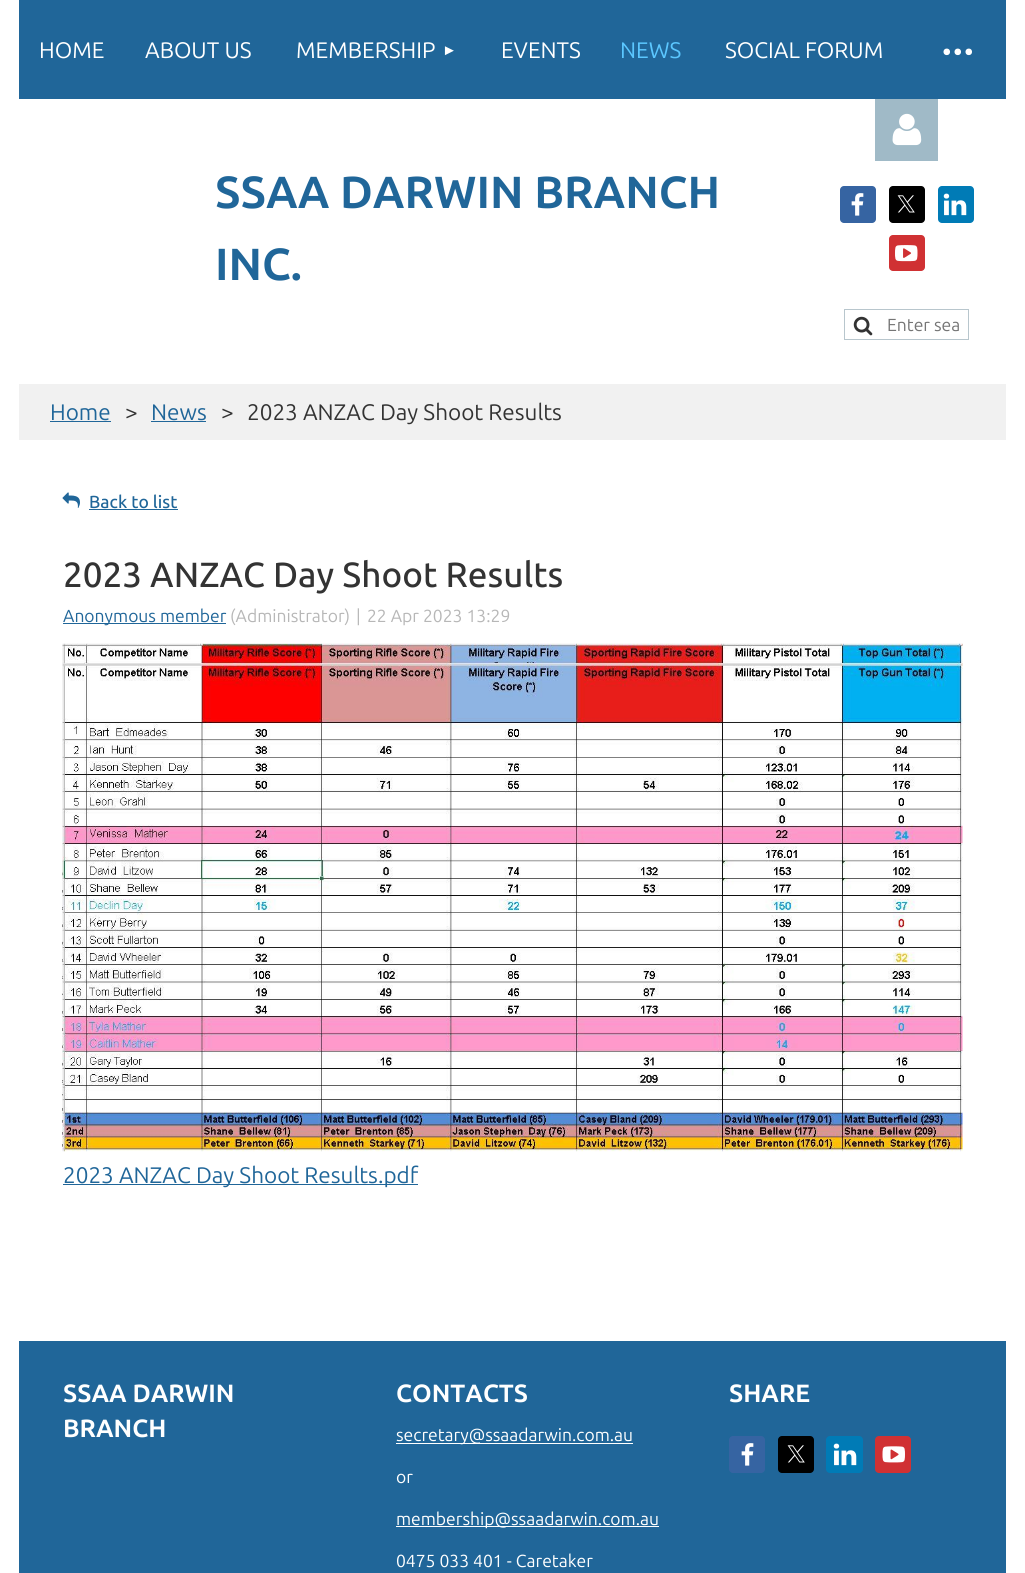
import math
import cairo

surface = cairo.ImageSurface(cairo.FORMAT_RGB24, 1025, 1573)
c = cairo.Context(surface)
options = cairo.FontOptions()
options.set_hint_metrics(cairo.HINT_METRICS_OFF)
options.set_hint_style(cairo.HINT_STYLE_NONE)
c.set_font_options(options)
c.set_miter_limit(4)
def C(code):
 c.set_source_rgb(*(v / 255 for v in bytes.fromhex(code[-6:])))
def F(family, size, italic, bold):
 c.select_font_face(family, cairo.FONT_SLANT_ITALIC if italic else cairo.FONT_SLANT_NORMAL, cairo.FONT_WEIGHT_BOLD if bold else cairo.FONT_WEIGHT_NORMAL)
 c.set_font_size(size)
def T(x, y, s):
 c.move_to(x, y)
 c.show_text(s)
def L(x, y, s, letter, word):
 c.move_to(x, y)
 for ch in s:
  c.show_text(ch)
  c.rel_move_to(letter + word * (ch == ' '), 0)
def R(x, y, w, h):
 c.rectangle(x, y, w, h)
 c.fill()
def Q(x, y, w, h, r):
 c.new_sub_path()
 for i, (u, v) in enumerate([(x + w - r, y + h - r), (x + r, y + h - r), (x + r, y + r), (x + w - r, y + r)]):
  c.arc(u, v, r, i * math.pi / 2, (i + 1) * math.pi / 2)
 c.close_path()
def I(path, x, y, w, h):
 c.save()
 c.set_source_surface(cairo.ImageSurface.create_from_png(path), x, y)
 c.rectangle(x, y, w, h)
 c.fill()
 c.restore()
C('ffffff')
c.paint()
C('206699')
R(19,0,987,99)
F('Ubuntu',22.5,0,0)
C('ffffff')
T(39,58,'HOME')
T(145,58,'ABOUT US')
T(296,58,'MEMBERSHIP')
F('Liberation Sans',15,0,0)
T(442,55,'►')
F('Ubuntu',22.5,0,0)
T(501,58,'EVENTS')
C('5bc7ff')
T(620,58,'NEWS')
C('ffffff')
T(725,58,'SOCIAL FORUM')
F('Ubuntu',55,0,0)
L(940,68,'···',-2.5,0)
F('Ubuntu',45,0,1)
C('206699')
T(215,208,'SSAA DARWIN BRANCH')
T(215,280,'INC.')
C('a0bac7')
R(875,99,63,62)
I('1.png',892,113,30,33)
C('3664a2')
Q(840,186,36,37,4)
c.fill()
I('2.png',851,193,13,23)
C('000000')
Q(889,186,36,37,4)
c.fill()
I('3.png',897,195,18,18)
C('007bb6')
Q(938,186,36,37,4)
c.fill()
I('4.png',943,193,24,23)
C('d03133')
Q(889,235,36,36,4)
c.fill()
I('5.png',895,245,23,17)
c.rectangle(844.5,309.5,124,30)
C('b8c6cd')
c.set_line_width(1)
c.stroke()
I('6.png',853,316,20,20)
F('Ubuntu',17.5,0,0)
C('757575')
T(887,331,'Enter sea')
C('f1f1f1')
R(19,384,987,56)
F('Ubuntu',22.5,0,0)
C('206699')
T(50,420,'Home')
R(50,421,61,1)
C('333333')
T(125,420,'>')
C('206699')
T(151,420,'News')
R(151,421,55,1)
C('333333')
T(221,420,'>')
T(247,420,'2023 ANZAC Day Shoot Results')
I('7.png',62,492,18,16)
F('Ubuntu Medium',17.5,0,0)
C('206699')
T(89,508,'Back to list')
R(89,509,89,1)
F('Ubuntu Medium',35,0,0)
C('333333')
T(63,587,'2023 ANZAC Day Shoot Results')
C('206699')
R(63,623,163,1)
F('Ubuntu',17.5,0,0)
T(63,622,'Anonymous member')
C('b7b7b7')
T(230,622,'(Administrator)')
T(356,622,'|')
T(367,622,'22 Apr 2023 13:29')
I('8.png',62,643,901,509)
C('206699')
R(63,1184,355,1)
F('Ubuntu',22.5,0,0)
T(63,1183,'2023 ANZAC Day Shoot Results.pdf')
R(19,1341,987,232)
F('Ubuntu',25,0,1)
C('ffffff')
T(63,1402,'SSAA DARWIN')
T(63,1437,'BRANCH')
T(396,1402,'CONTACTS')
R(396,1443,237,1)
F('Ubuntu',17.5,0,0)
T(396,1441,'secretary@ssaadarwin.com.au')
T(396,1483,'or')
R(396,1526,263,1)
T(396,1525,'membership@ssaadarwin.com.au')
T(396,1567,'0475 033 401 - Caretaker')
F('Ubuntu',25,0,1)
T(729,1402,'SHARE')
C('3664a2')
Q(729,1436,36,37,4)
c.fill()
I('2.png',741,1443,13,23)
C('000000')
Q(778,1436,36,37,4)
c.fill()
I('3.png',787,1445,18,18)
C('007bb6')
Q(826,1436,37,37,4)
c.fill()
I('4.png',833,1443,24,23)
C('d03133')
Q(875,1436,36,37,4)
c.fill()
I('9.png',882,1446,23,17)
surface.write_to_png('o.png')
